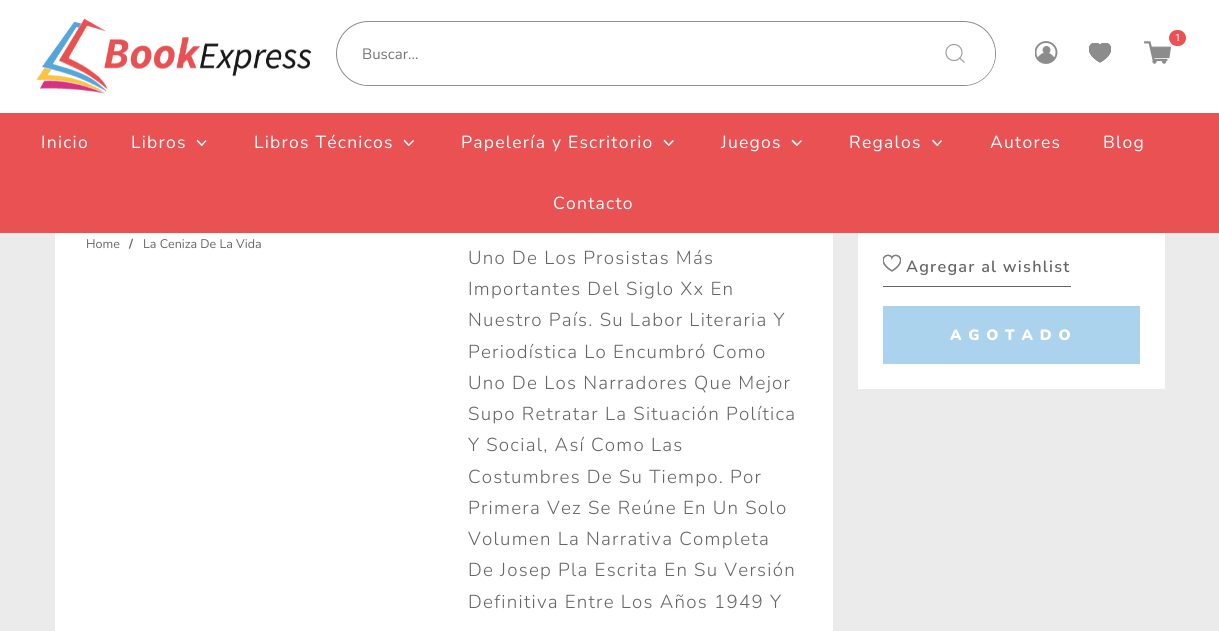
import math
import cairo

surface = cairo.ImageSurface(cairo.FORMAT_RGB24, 1219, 631)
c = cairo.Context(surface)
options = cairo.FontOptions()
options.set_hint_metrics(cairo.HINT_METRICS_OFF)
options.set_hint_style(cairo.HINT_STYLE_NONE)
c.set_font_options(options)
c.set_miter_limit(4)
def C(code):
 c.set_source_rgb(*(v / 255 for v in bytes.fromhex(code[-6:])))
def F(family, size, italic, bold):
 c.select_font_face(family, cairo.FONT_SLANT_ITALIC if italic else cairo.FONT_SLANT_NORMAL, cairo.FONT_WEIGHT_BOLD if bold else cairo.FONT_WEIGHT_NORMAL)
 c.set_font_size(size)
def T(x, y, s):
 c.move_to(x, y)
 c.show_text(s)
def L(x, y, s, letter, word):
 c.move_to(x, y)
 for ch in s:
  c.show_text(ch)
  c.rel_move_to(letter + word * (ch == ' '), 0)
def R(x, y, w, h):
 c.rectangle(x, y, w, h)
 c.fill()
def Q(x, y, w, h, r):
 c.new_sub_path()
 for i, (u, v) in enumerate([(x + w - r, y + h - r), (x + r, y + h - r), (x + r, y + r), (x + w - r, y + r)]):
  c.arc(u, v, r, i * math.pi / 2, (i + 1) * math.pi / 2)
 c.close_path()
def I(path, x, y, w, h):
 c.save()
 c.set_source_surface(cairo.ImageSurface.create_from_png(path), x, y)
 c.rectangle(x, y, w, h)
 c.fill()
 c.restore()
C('ebebeb')
c.paint()
C('ffffff')
R(0,0,1219,113)
I('1.png',36,18,276,76)
I('2.png',1144,41,27,23)
C('e95153')
Q(1169,30,17,16,8)
c.fill()
F('Roboto',10,0,0)
C('ffffff')
L(1175,41,'1',1,0)
I('3.png',1035,41,23,23)
I('4.png',1089,43,22,20)
Q(336.5,21.5,659,64,32)
C('8c8c8c')
c.set_line_width(1)
c.stroke()
C('ffffff')
Q(338,23,657,62,31)
c.fill()
F('Nunito ExtraLight',15,0,0)
C('757575')
T(362,59,'Buscar...')
c.new_path()
c.arc(954,52.5,8,0,2 * math.pi)
C('a0a0a0')
c.set_line_width(1.2)
c.stroke()
c.new_path()
c.move_to(964.5,62.5)
c.line_to(959.5,58)
c.stroke()
C('e95153')
R(0,113,1219,120)
F('Nunito ExtraLight',17.5,0,0)
C('ffffff')
L(41,148,'Inicio',1.25,0)
L(131,148,'Libros',1.25,0)
c.new_path()
c.move_to(205.5,140)
c.line_to(206.5,141)
c.line_to(202,146)
c.line_to(201,145)
c.close_path()
c.fill()
c.new_path()
c.move_to(197.5,139.5)
c.line_to(202.5,145)
c.line_to(201.5,146)
c.line_to(196.5,141)
c.close_path()
c.fill()
L(254,148,'Libros Técnicos',1.25,0)
c.new_path()
c.move_to(413,140)
c.line_to(414,141)
c.line_to(409,146)
c.line_to(408,145)
c.close_path()
c.fill()
c.new_path()
c.move_to(404.5,139.5)
c.line_to(409.5,145)
c.line_to(408.5,146)
c.line_to(403.5,141)
c.close_path()
c.fill()
L(461,148,'Papelería y Escritorio',1.25,0)
c.new_path()
c.move_to(672.5,140)
c.line_to(674,141)
c.line_to(669,146)
c.line_to(668,145)
c.close_path()
c.fill()
c.new_path()
c.move_to(664.5,139.5)
c.line_to(669.5,145)
c.line_to(668.5,146)
c.line_to(663.5,141)
c.close_path()
c.fill()
L(721,148,'Juegos',1.25,0)
c.new_path()
c.move_to(801,140)
c.line_to(802,141)
c.line_to(797,146)
c.line_to(796,145)
c.close_path()
c.fill()
c.new_path()
c.move_to(792.5,139.5)
c.line_to(798,145)
c.line_to(796.5,146)
c.line_to(791.5,141)
c.close_path()
c.fill()
L(849,148,'Regalos',1.25,0)
c.new_path()
c.move_to(941,140)
c.line_to(942,141)
c.line_to(937.5,146)
c.line_to(936.5,145)
c.close_path()
c.fill()
c.new_path()
c.move_to(933,139.5)
c.line_to(938,145)
c.line_to(937,146)
c.line_to(932,141)
c.close_path()
c.fill()
L(990,148,'Autores',1.25,0)
L(1103,148,'Blog',1.25,0)
L(553,209,'Contacto',1.25,0)
R(55,233,778,398)
F('Nunito ExtraLight',12.5,0,0)
C('666666')
T(86,248,'Home')
F('Nunito',12.5,0,1)
T(129,248,'/')
F('Nunito ExtraLight',12.5,0,0)
T(143,248,'La Ceniza De La Vida')
F('Nunito Light',18.75,0,0)
L(468,264,'Uno De Los Prosistas Más',1.25,0)
L(468,295,'Importantes Del Siglo Xx En',1.25,0)
L(468,326,'Nuestro País. Su Labor Literaria Y',1.25,0)
L(468,358,'Periodística Lo Encumbró Como',1.25,0)
L(468,389,'Uno De Los Narradores Que Mejor',1.25,0)
L(468,420,'Supo Retratar La Situación Política',1.25,0)
L(468,451,'Y Social, Así Como Las',1.25,0)
L(468,483,'Costumbres De Su Tiempo. Por',1.25,0)
L(468,514,'Primera Vez Se Reúne En Un Solo',1.25,0)
L(468,545,'Volumen La Narrativa Completa',1.25,0)
L(468,576,'De Josep Pla Escrita En Su Versión',1.25,0)
L(468,608,'Definitiva Entre Los Años 1949 Y',1.25,0)
C('ffffff')
R(858,233,307,156)
C('666666')
R(883,286,188,1)
I('5.png',883,254,18,18)
F('Nunito SemiBold',16.25,0,0)
L(906,272,'Agregar al wishlist',1.25,0)
C('abd3ee')
R(883,306,257,58)
F('Nunito Black',15,0,0)
C('ffffff')
L(950,340,'A G O T A D O',1.25,0)
surface.write_to_png('o.png')
